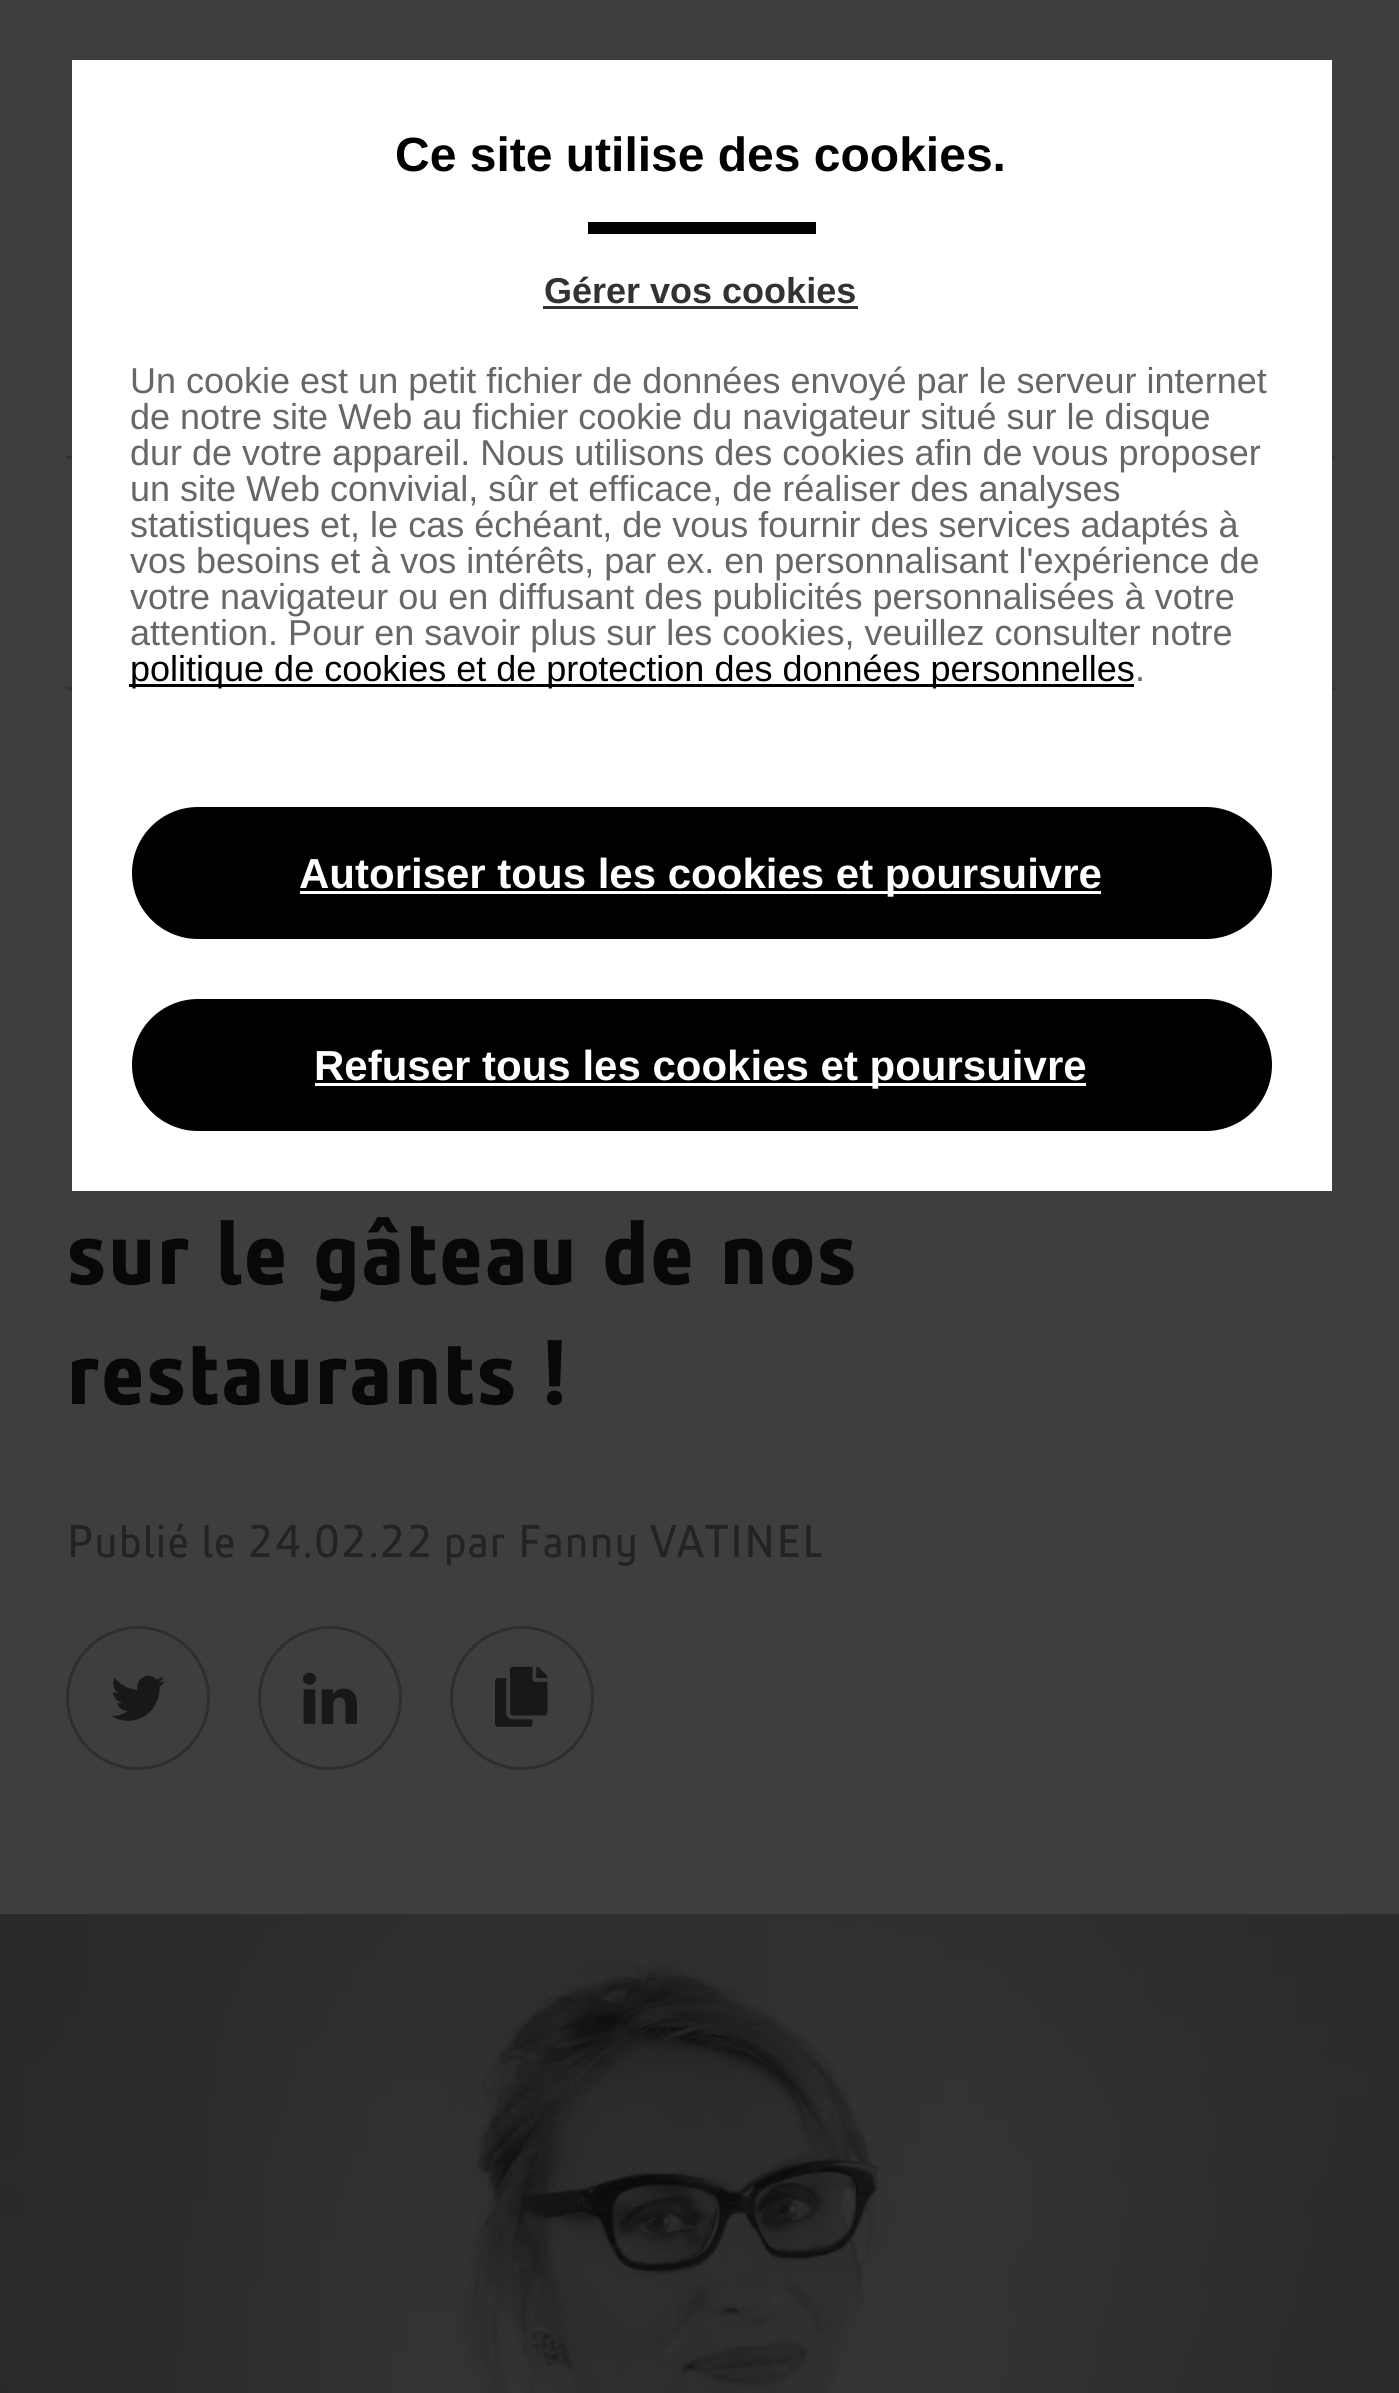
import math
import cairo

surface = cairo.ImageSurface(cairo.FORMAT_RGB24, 1399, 2393)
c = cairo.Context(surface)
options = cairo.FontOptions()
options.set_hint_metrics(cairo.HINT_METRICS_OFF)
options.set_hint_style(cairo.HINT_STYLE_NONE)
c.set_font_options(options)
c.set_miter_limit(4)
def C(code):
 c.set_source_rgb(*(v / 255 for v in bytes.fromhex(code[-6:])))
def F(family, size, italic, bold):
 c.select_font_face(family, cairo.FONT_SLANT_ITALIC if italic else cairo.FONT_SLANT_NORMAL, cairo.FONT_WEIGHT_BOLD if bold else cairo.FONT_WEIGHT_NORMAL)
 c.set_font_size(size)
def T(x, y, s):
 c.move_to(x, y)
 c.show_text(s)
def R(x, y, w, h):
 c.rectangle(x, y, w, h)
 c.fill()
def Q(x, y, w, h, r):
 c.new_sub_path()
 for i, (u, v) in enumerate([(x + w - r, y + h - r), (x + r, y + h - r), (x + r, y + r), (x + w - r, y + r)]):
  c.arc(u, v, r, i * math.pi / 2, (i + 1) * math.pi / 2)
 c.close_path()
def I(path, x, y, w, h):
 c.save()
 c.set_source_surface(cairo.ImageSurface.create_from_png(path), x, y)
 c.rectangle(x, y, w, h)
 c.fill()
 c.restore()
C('3f3e3d')
c.paint()
C('343332')
R(66,456,1269,3)
R(66,687,1269,3)
C('ffffff')
R(72,60,1260,1131)
F('Liberation Sans',48,0,1)
C('000000')
T(395,171,'Ce site utilise des cookies.')
R(588,222,228,12)
F('Liberation Sans',36,0,1)
C('323232')
T(544,303,'Gérer vos cookies')
R(543,306,315,3)
F('Liberation Sans',36,0,0)
C('676767')
T(130,393,'Un cookie est un petit fichier de données envoyé par le serveur internet')
T(130,429,'de notre site Web au fichier cookie du navigateur situé sur le disque')
T(130,465,'dur de votre appareil. Nous utilisons des cookies afin de vous proposer')
T(130,501,'un site Web convivial, sûr et efficace, de réaliser des analyses')
T(130,537,'statistiques et, le cas échéant, de vous fournir des services adaptés à')
T(130,573,'vos besoins et à vos intérêts, par ex. en personnalisant l\'expérience de')
T(130,609,'votre navigateur ou en diffusant des publicités personnalisées à votre')
T(130,645,'attention. Pour en savoir plus sur les cookies, veuillez consulter notre')
C('000000')
R(129,684,1005,3)
T(130,681,'politique de cookies et de protection des données personnelles')
C('676767')
T(1135,681,'.')
C('000000')
Q(132,807,1140,132,66)
c.fill()
C('ffffff')
R(300,891,801,3)
F('Liberation Sans',42,0,1)
T(299,888,'Autoriser tous les cookies et poursuivre')
C('000000')
Q(132,999,1140,132,66)
c.fill()
C('ffffff')
R(315,1083,771,3)
T(314,1080,'Refuser tous les cookies et poursuivre')
F('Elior',96,0,1)
C('080808')
T(66,1284,'sur le gâteau de nos')
T(66,1404,'restaurants !')
F('Elior',48,0,0)
C('242322')
T(66,1557,'Publié le 24.02.22')
T(443,1557,'par Fanny VATINEL')
c.new_path()
c.arc(138,1698,70.5,0,2 * math.pi)
C('2f2e2d')
c.set_line_width(3)
c.stroke()
I('1.png',111,1675,54,46)
c.arc(330,1698,70.5,0,2 * math.pi)
c.stroke()
I('2.png',303,1672,54,52)
c.arc(522,1698,70.5,0,2 * math.pi)
c.stroke()
I('3.png',495,1666,53,61)
I('4.png',0,1914,1399,479)
surface.write_to_png('o.png')
